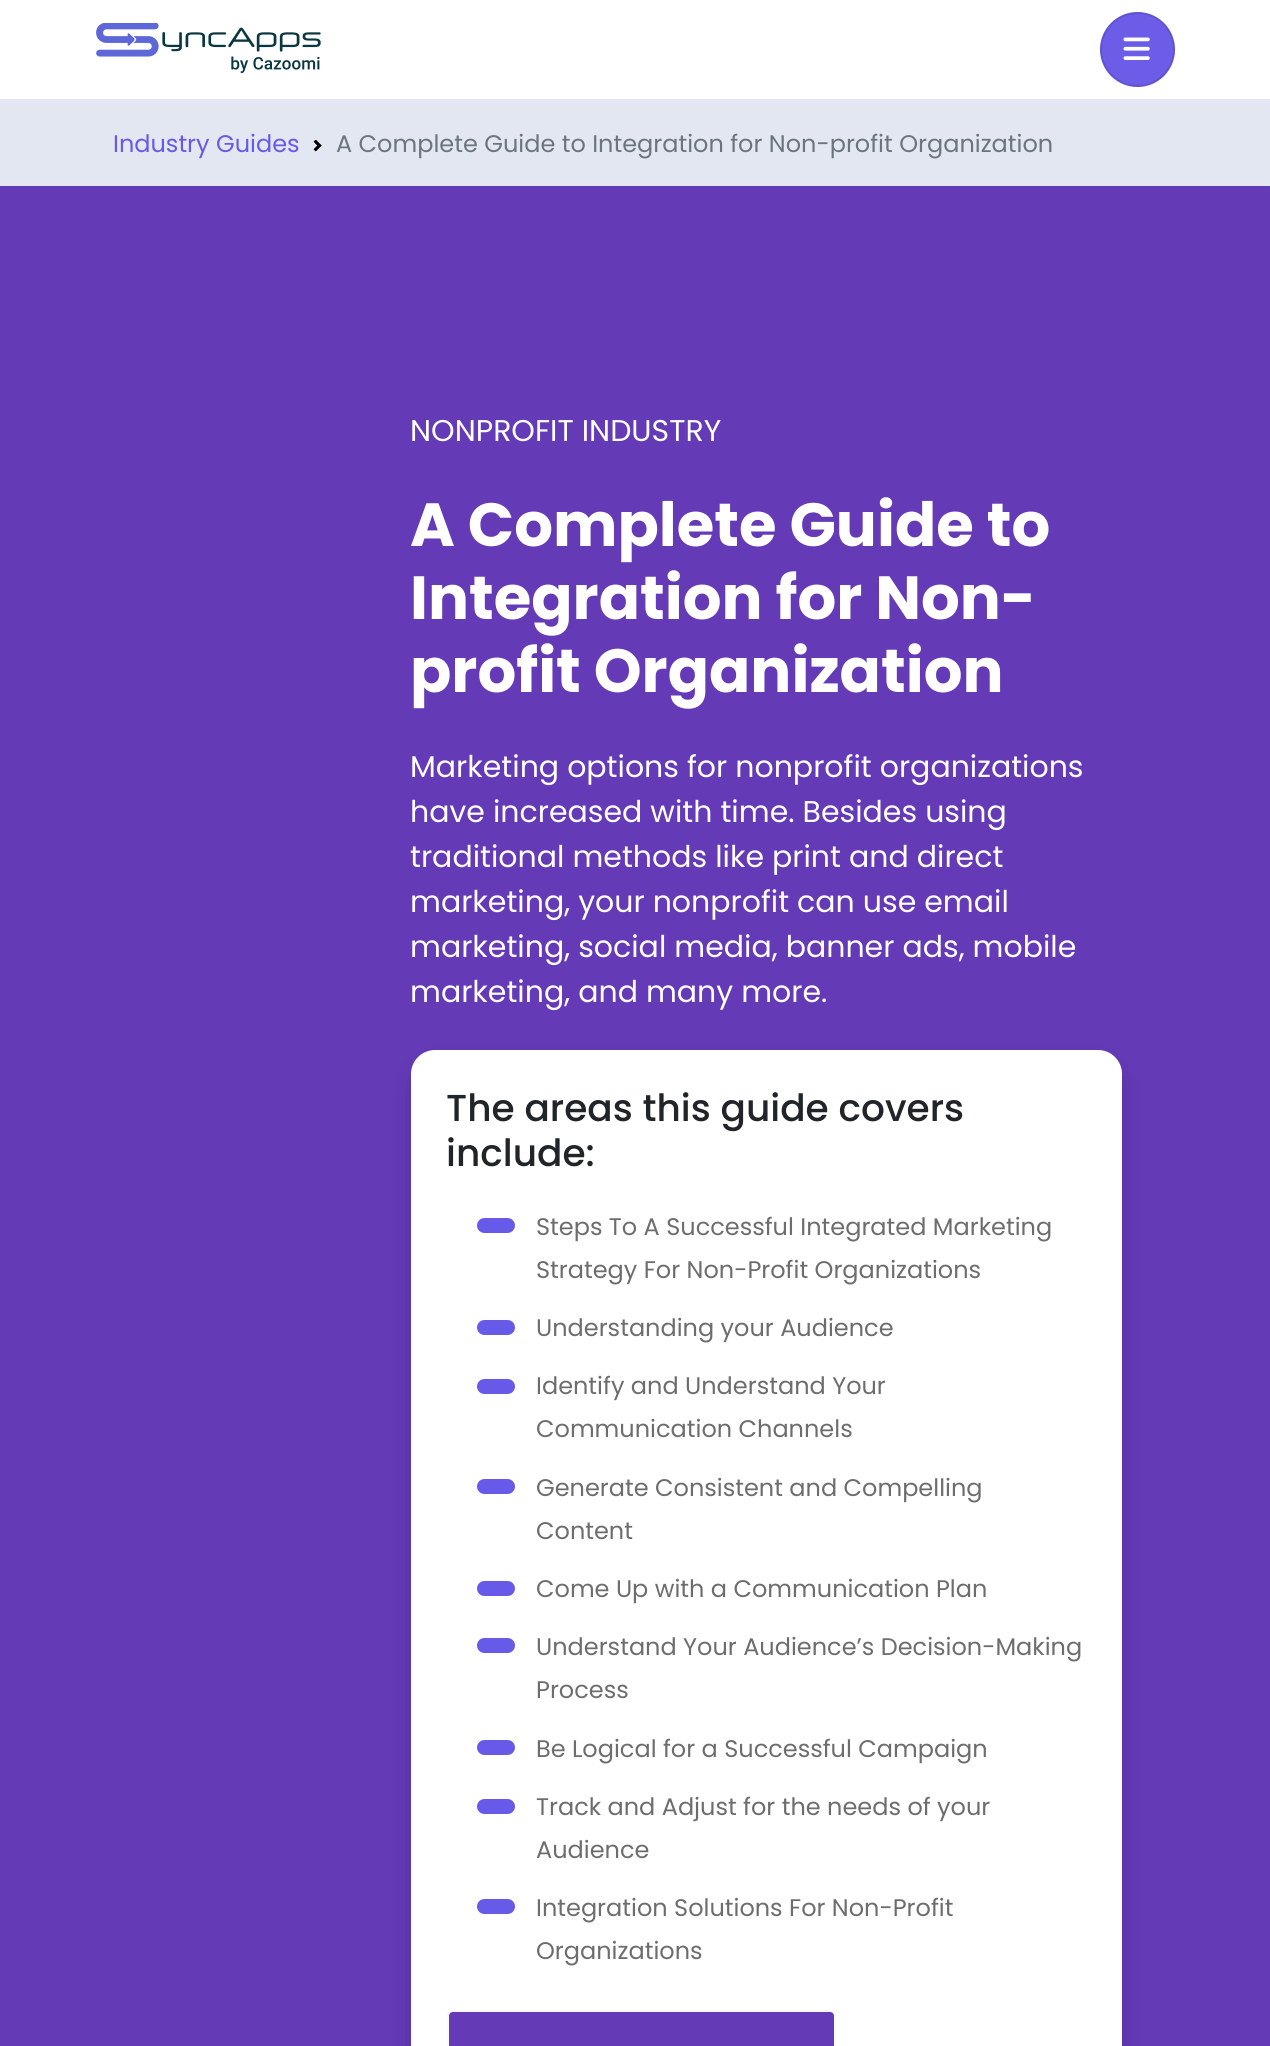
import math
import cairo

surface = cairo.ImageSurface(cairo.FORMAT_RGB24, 1270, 2046)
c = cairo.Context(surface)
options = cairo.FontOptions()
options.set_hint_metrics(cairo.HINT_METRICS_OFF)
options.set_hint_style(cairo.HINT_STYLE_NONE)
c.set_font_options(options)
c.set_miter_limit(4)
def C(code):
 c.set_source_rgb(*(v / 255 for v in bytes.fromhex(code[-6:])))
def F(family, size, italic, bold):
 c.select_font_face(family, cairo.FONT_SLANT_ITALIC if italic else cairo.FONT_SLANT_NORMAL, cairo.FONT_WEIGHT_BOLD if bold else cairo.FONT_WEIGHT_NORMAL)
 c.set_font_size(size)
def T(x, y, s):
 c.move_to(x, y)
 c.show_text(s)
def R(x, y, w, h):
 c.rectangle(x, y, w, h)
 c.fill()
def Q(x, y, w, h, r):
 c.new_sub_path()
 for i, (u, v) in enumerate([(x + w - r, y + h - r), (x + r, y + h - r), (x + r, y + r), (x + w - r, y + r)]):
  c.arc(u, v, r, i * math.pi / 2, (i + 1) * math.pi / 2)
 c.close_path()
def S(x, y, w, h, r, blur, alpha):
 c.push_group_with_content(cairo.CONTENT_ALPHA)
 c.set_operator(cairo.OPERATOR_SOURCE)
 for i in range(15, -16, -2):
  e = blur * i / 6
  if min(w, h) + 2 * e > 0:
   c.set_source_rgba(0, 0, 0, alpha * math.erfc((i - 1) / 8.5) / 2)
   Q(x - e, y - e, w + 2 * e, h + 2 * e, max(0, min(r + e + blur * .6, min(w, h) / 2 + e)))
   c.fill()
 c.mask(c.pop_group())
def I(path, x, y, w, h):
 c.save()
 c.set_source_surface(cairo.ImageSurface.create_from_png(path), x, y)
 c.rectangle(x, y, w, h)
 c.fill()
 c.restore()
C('ffffff')
c.paint()
C('ebe4ff')
R(0,99,1270,3)
I('1.png',96,23,225,51)
C('6c5ce7')
c.arc(1137.5,49.5,37.5,0,2 * math.pi)
c.fill()
c.arc(1137.5,49.5,36.5,0,2 * math.pi)
c.set_source_rgba(0,0,0,0.1)
c.stroke()
I('2.png',1123,37,27,23)
C('e2e7f1')
R(0,102,1270,84)
F('Poppins',24,0,0)
C('675ae8')
T(113,152,'Industry Guides')
I('3.png',313,140,9,12)
C('6c757d')
T(336,152,'A Complete Guide to Integration for Non-profit Organization')
C('653ab7')
R(0,186,1270,1860)
F('Poppins',30,0,0)
C('ffffff')
T(410,441,'NONPROFIT INDUSTRY')
F('Poppins',60.9,0,1)
T(410,546,'A Complete Guide to')
T(410,619,'Integration for Non-')
T(410,692,'profit Organization')
F('Poppins',30,0,0)
T(410,777,'Marketing options for nonprofit organizations')
T(410,822,'have increased with time. Besides using')
T(410,867,'traditional methods like print and direct')
T(410,912,'marketing, your nonprofit can use email')
T(410,957,'marketing, social media, banner ads, mobile')
T(410,1002,'marketing, and many more.')
C('000000')
S(411,1062,711,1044,24,12,.15)
C('ffffff')
Q(411,1050,711,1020,24)
c.fill()
F('Poppins Medium',37.5,0,0)
C('212529')
T(446,1121,'The areas this guide covers')
T(446,1166,'include:')
C('675ae8')
Q(477,1218,38,15,7.5)
c.fill()
F('Poppins',24,0,0)
C('6d6d6d')
T(536,1235,'Steps To A Successful Integrated Marketing')
T(536,1278,'Strategy For Non-Profit Organizations')
C('675ae8')
Q(477,1320,38,15,7.5)
c.fill()
C('6d6d6d')
T(536,1336,'Understanding your Audience')
C('675ae8')
Q(477,1379,38,15,7.5)
c.fill()
C('6d6d6d')
T(536,1394,'Identify and Understand Your')
T(536,1437,'Communication Channels')
C('675ae8')
Q(477,1479,38,15,7.5)
c.fill()
C('6d6d6d')
T(536,1496,'Generate Consistent and Compelling')
T(536,1539,'Content')
C('675ae8')
Q(477,1581,38,15,7.5)
c.fill()
C('6d6d6d')
T(536,1597,'Come Up with a Communication Plan')
C('675ae8')
Q(477,1638,38,15,7.5)
c.fill()
C('6d6d6d')
T(536,1655,'Understand Your Audience’s Decision-Making')
T(536,1698,'Process')
C('675ae8')
Q(477,1740,38,15,7.5)
c.fill()
C('6d6d6d')
T(536,1757,'Be Logical for a Successful Campaign')
C('675ae8')
Q(477,1799,38,15,7.5)
c.fill()
C('6d6d6d')
T(536,1815,'Track and Adjust for the needs of your')
T(536,1858,'Audience')
C('675ae8')
Q(477,1899,38,15,7.5)
c.fill()
C('6d6d6d')
T(536,1916,'Integration Solutions For Non-Profit')
T(536,1959,'Organizations')
C('653ab7')
Q(448,2011,387,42,5)
c.fill_preserve()
C('f8f9fa')
c.stroke()
surface.write_to_png('o.png')
